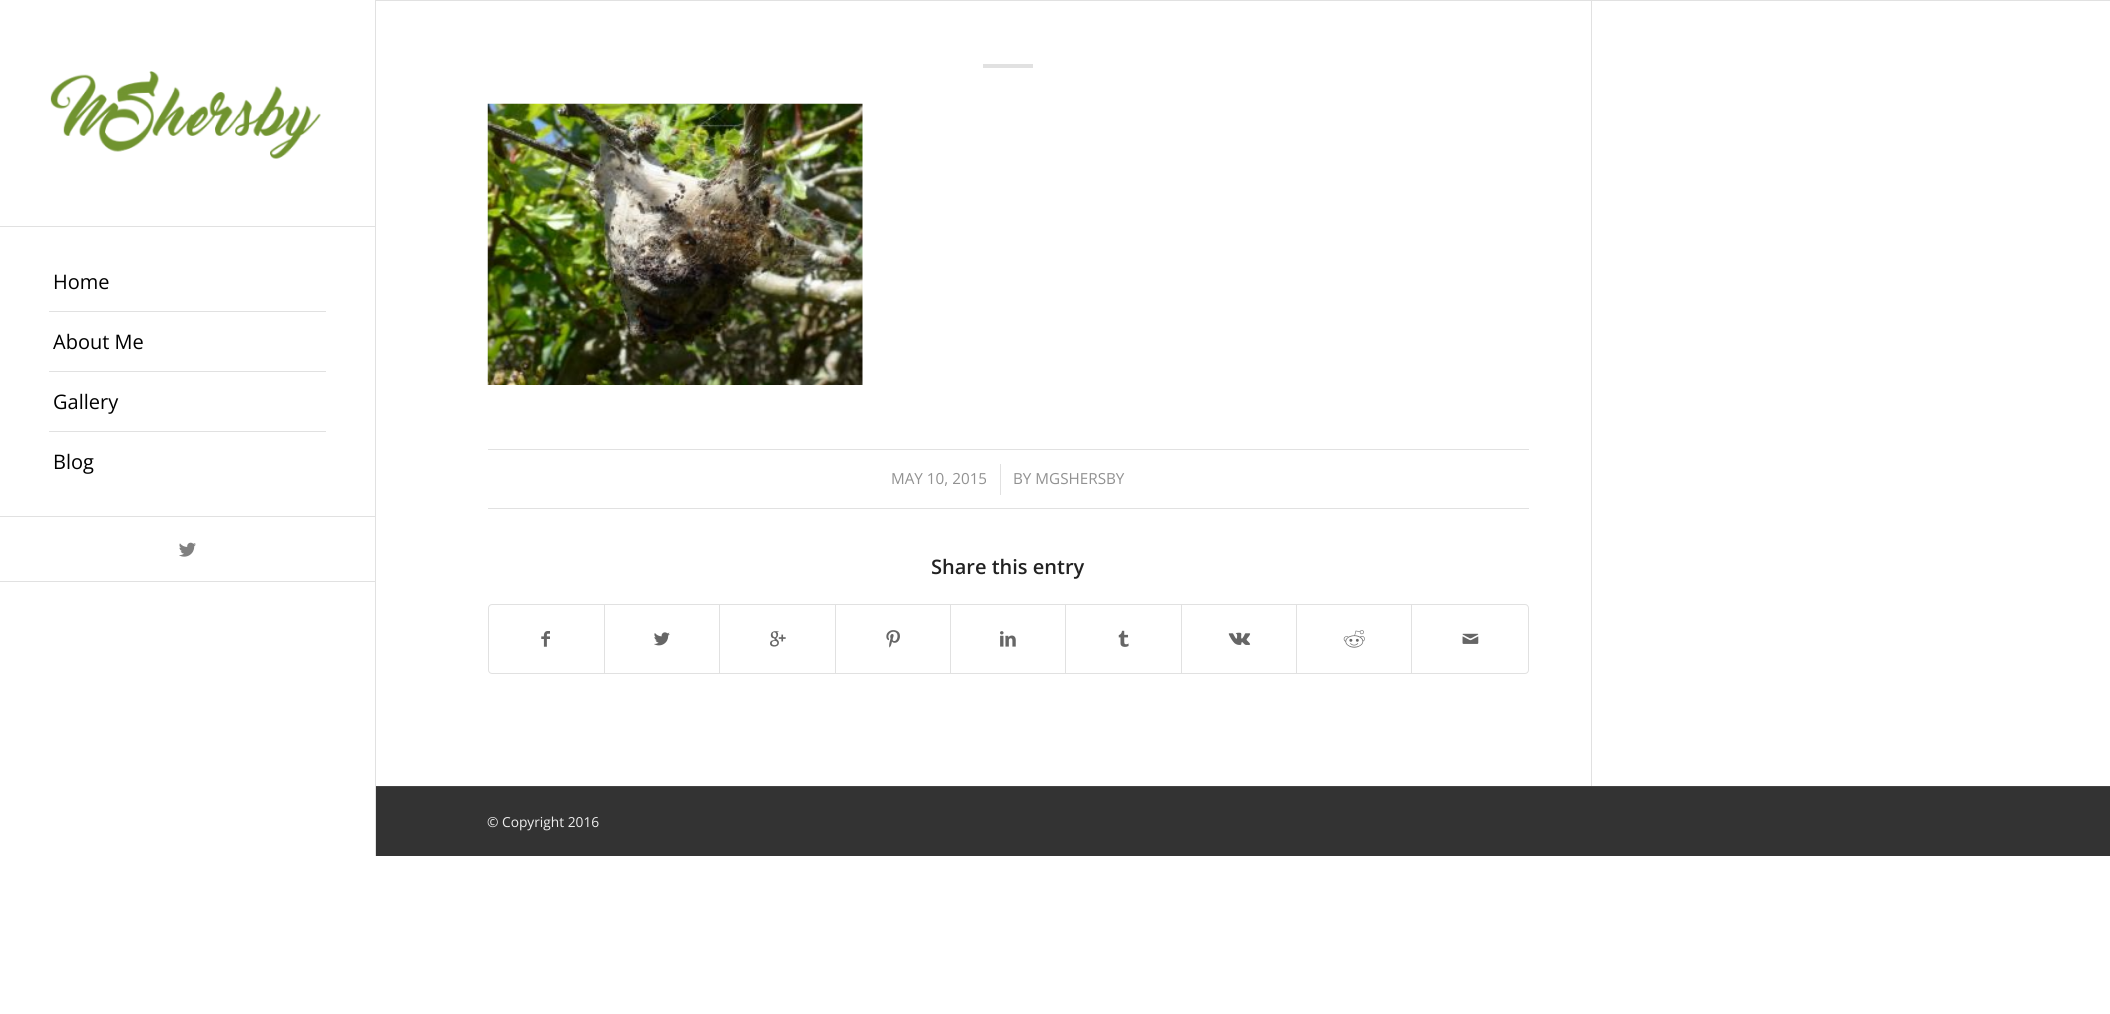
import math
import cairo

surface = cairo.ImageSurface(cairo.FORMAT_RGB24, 2110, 1014)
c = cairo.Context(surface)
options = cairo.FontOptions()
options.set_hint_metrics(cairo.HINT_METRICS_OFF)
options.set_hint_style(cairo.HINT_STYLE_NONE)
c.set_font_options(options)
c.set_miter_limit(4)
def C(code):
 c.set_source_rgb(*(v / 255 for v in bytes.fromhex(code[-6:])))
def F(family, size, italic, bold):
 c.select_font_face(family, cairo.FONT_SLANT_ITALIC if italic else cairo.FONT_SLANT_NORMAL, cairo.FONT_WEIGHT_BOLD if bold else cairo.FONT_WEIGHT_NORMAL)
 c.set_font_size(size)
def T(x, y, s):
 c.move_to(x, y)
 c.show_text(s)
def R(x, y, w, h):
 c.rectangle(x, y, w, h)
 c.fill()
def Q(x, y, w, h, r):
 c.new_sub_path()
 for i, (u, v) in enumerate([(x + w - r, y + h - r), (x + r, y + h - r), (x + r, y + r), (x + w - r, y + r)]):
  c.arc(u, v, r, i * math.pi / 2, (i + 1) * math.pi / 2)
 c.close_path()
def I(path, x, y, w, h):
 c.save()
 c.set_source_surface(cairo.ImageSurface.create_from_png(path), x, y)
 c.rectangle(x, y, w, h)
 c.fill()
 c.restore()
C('ffffff')
c.paint()
C('e1e1e1')
R(0,581,375,1)
R(0,226,375,1)
I('1.png',50,71,271,88)
R(49,311,277,1)
F('Open Sans',20,0,0)
C('000000')
T(53,289,'Home')
C('e1e1e1')
R(49,371,277,1)
C('000000')
T(53,349,'About Me')
C('e1e1e1')
R(49,431,277,1)
C('000000')
T(53,409,'Gallery')
T(53,469,'Blog')
C('e1e1e1')
R(0,516,375,1)
I('2.png',179,542,17,15)
R(375,0,1,856)
R(376,0,1734,1)
R(1591,1,1,785)
R(983,64,50,4)
I('3.png',487,103,376,282)
R(488,449,1041,1)
R(488,508,1041,1)
F('Open Sans',15.25,0,0)
C('919191')
T(891,484,'MAY 10, 2015')
C('e1e1e1')
R(1000,464,1,31)
C('919191')
T(1013,484,'BY MGSHERSBY')
F('Open Sans SemiBold',20,0,0)
C('222222')
T(931,574,'Share this entry')
Q(488.5,604.5,1040,69,3.5)
C('e1e1e1')
c.set_line_width(1)
c.stroke()
I('4.png',541,631,9,16)
R(604,605,1,68)
I('5.png',654,632,16,14)
R(719,605,1,68)
I('6.png',770,631,16,16)
R(835,605,1,68)
I('7.png',886,630,14,18)
R(950,605,1,68)
I('8.png',1000,631,16,16)
R(1065,605,1,68)
I('9.png',1118,630,11,17)
R(1181,605,1,68)
I('10.png',1228,632,23,13)
R(1296,605,1,68)
I('11.png',1343,630,22,18)
R(1411,605,1,68)
I('12.png',1462,633,17,11)
C('333333')
R(376,787,1734,69)
C('444444')
R(376,786,1734,1)
F('Open Sans',13.75,0,0)
C('eeeeee')
T(487,827,'© Copyright 2016')
surface.write_to_png('o.png')
